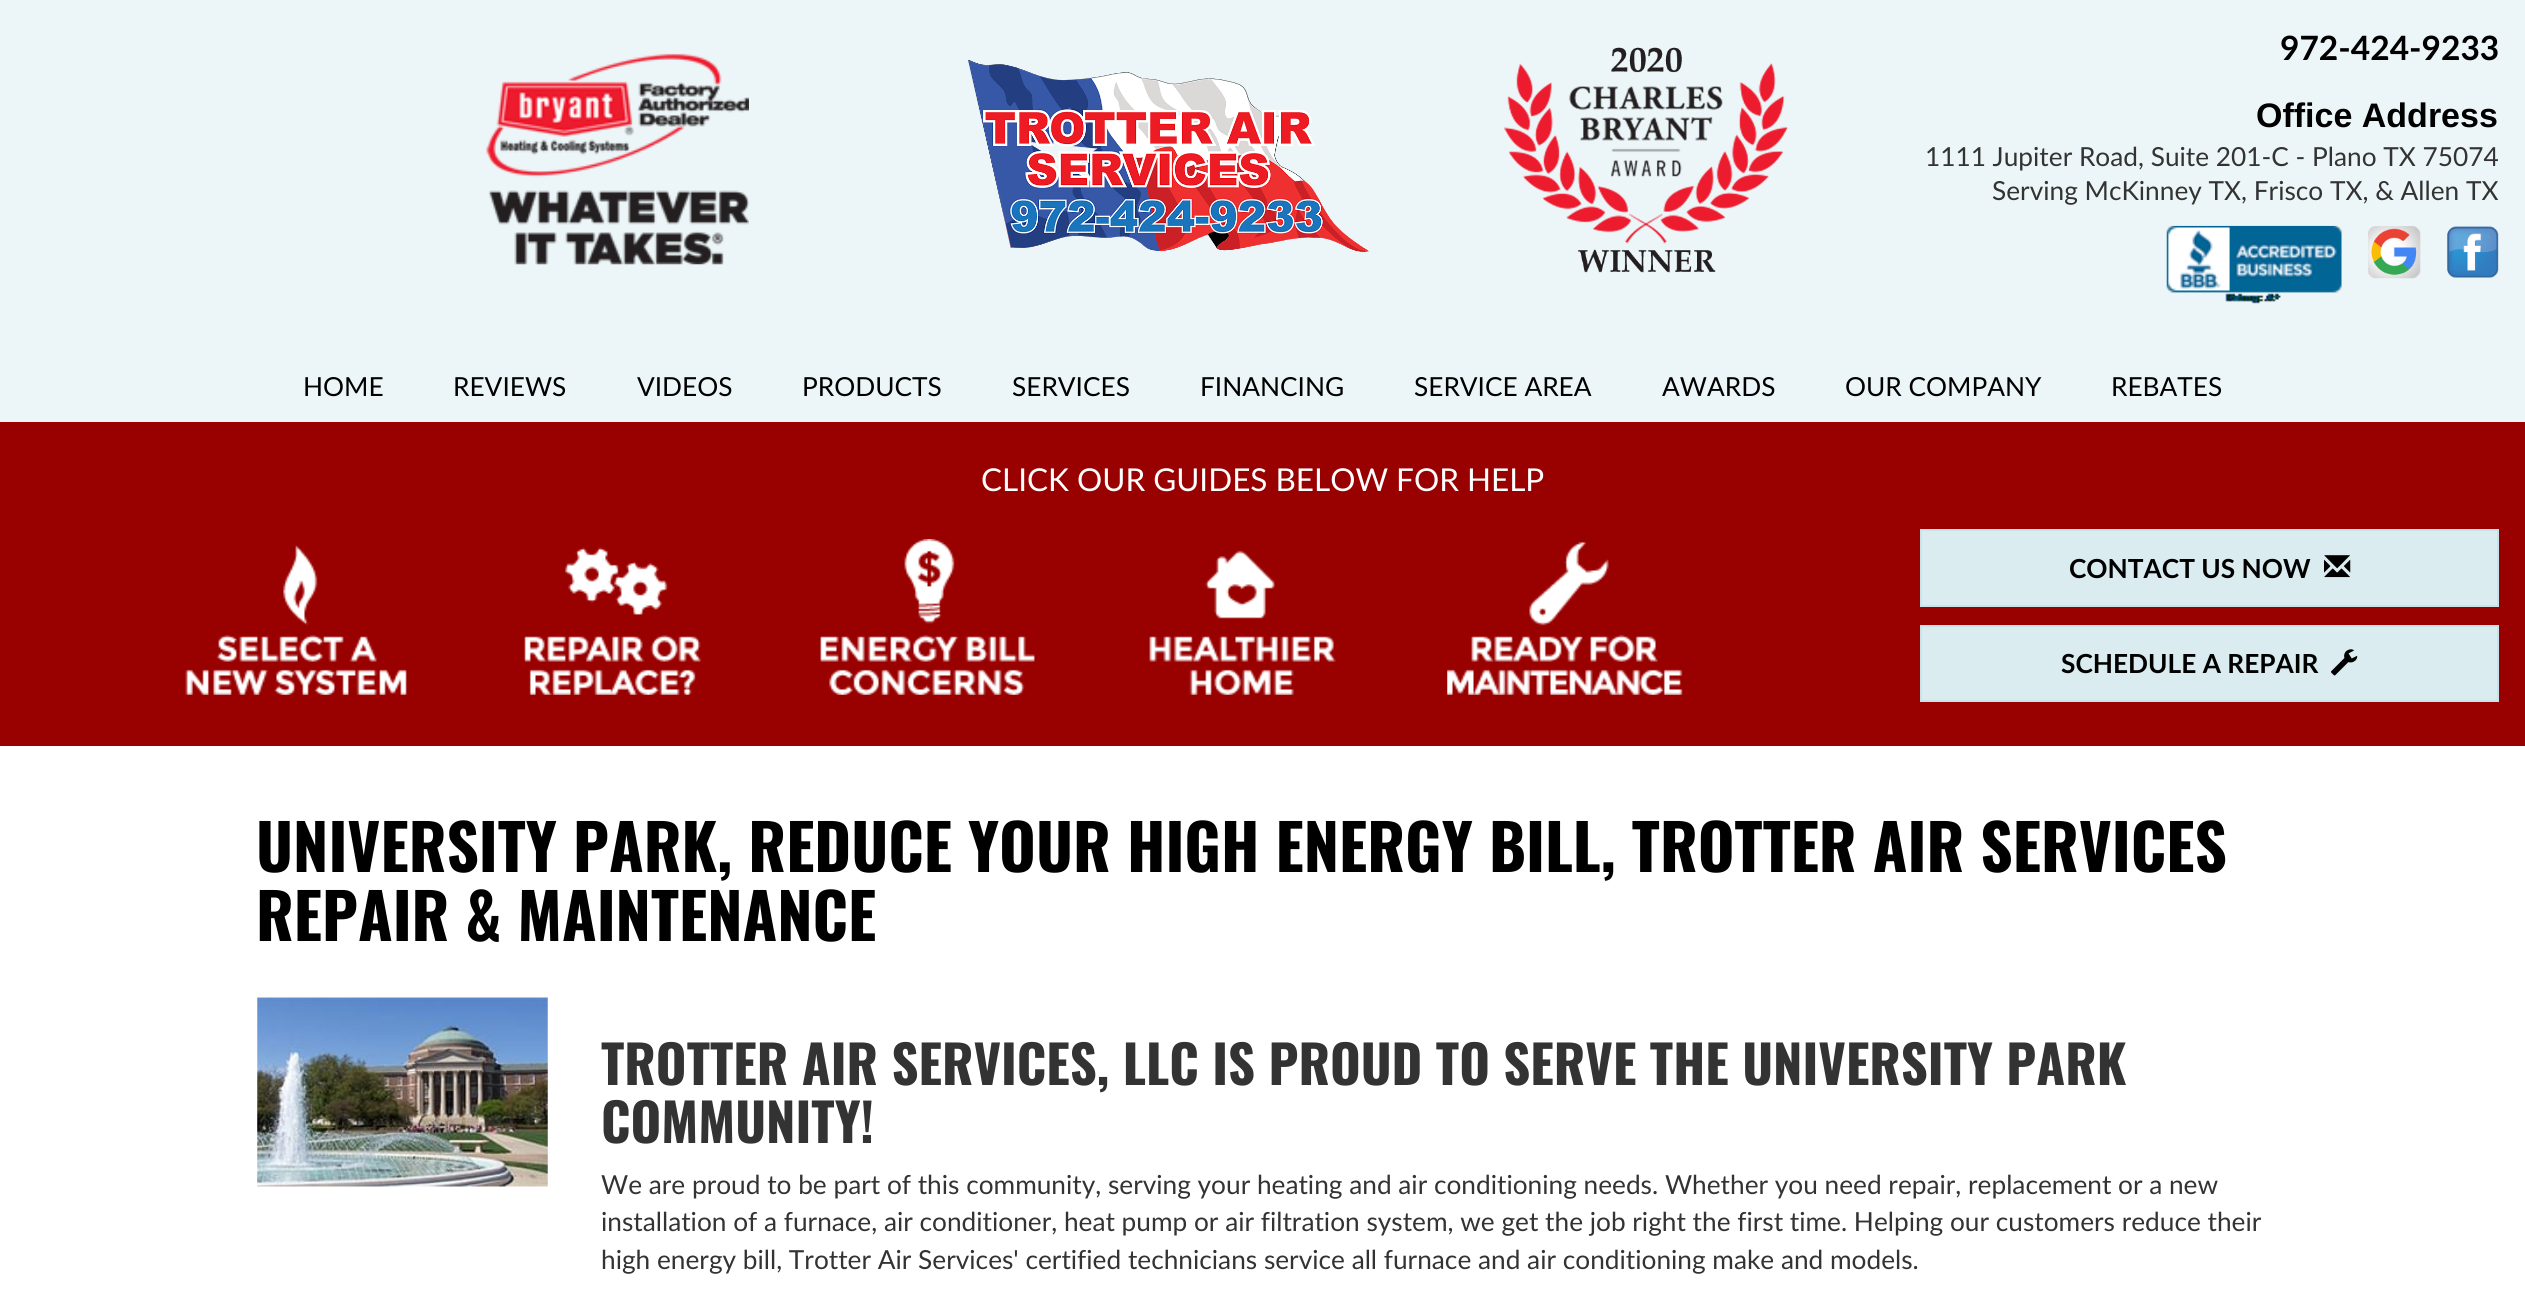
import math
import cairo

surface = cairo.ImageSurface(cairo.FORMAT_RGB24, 2525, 1292)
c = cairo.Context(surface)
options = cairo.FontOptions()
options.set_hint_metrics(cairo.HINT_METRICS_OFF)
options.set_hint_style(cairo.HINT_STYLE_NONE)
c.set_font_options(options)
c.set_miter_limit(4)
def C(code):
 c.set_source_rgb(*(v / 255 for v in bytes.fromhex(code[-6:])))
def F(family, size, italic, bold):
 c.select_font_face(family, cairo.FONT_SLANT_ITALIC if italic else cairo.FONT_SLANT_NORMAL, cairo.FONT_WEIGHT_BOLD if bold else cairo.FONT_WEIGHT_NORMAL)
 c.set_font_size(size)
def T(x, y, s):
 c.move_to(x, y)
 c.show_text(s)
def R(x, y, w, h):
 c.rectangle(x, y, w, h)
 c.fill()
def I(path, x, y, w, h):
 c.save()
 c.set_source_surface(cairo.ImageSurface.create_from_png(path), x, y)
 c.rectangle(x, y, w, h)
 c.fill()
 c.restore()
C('ffffff')
c.paint()
C('ecf5f7')
R(0,0,2525,422)
I('1.png',486,53,263,212)
I('2.png',968,59,401,193)
I('3.png',1504,47,284,226)
F('Lato',33.5,0,1)
C('000000')
T(2280,60,'972-424-9233')
F('Liberation Sans',34,0,1)
T(2256,127,'Office Address')
F('Lato',26.25,0,0)
C('333333')
T(1925,166,'1111 Jupiter Road, Suite 201-C - Plano TX 75074')
T(1992,200,'Serving McKinney TX, Frisco TX, & Allen TX')
I('4.png',2166,225,176,79)
I('5.png',2368,226,53,53)
I('6.png',2447,226,52,52)
C('000000')
T(303,396,'HOME')
T(453,396,'REVIEWS')
T(637,396,'VIDEOS')
T(802,396,'PRODUCTS')
T(1012,396,'SERVICES')
T(1200,396,'FINANCING')
T(1414,396,'SERVICE AREA')
T(1662,396,'AWARDS')
T(1845,396,'OUR COMPANY')
T(2111,396,'REBATES')
C('990000')
R(0,422,2525,324)
F('Lato',31.5,0,0)
C('ffffff')
T(981,491,'CLICK OUR GUIDES BELOW FOR HELP')
I('7.png',185,545,222,150)
I('8.png',524,547,178,148)
I('9.png',820,539,215,156)
I('10.png',1149,550,187,145)
I('11.png',1447,542,236,153)
C('daecf0')
c.rectangle(1921,530,577,76)
c.fill_preserve()
C('c8e3e9')
c.stroke()
F('Lato',26.25,0,1)
C('000000')
T(2069,578,'CONTACT US NOW')
I('12.png',2324,555,27,23)
C('daecf0')
c.rectangle(1921,626,577,75)
c.fill_preserve()
C('c8e3e9')
c.stroke()
C('000000')
T(2061,673,'SCHEDULE A REPAIR')
I('13.png',2331,649,27,27)
F('Oswald',63,0,1)
T(256,872,'UNIVERSITY PARK, REDUCE YOUR HIGH ENERGY BILL, TROTTER AIR SERVICES')
T(256,941,'REPAIR & MAINTENANCE')
I('14.png',257,997,291,190)
F('Oswald',52.5,0,1)
C('333333')
T(601,1085,'TROTTER AIR SERVICES, LLC IS PROUD TO SERVE THE UNIVERSITY PARK')
T(601,1143,'COMMUNITY!')
F('Lato',26.25,0,0)
T(601,1194,'We are proud to be part of this community, serving your heating and air conditioning needs. Whether you need repair, replacement or a new')
T(601,1231,'installation of a furnace, air conditioner, heat pump or air filtration system, we get the job right the first time. Helping our customers reduce their')
T(601,1269,'high energy bill, Trotter Air Services\' certified technicians service all furnace and air conditioning make and models.')
surface.write_to_png('o.png')
